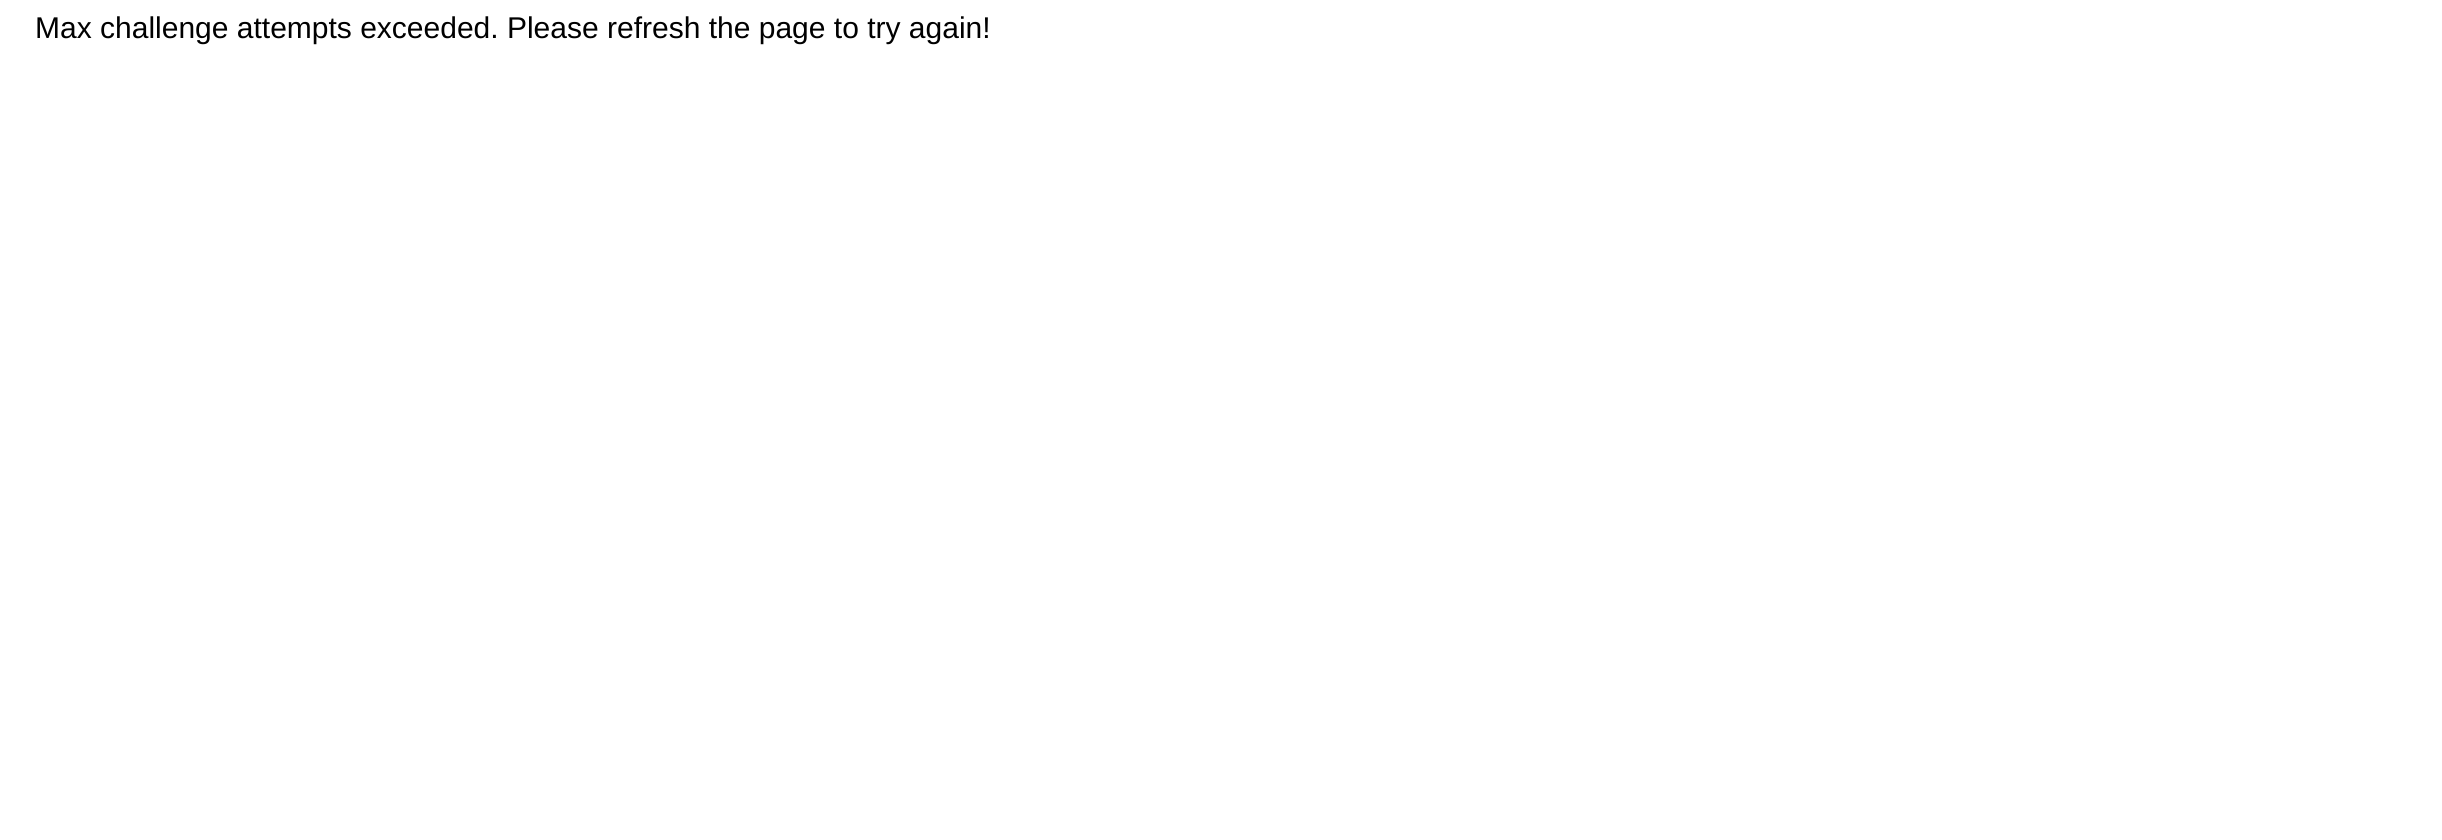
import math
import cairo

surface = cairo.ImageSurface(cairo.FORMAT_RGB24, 2442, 840)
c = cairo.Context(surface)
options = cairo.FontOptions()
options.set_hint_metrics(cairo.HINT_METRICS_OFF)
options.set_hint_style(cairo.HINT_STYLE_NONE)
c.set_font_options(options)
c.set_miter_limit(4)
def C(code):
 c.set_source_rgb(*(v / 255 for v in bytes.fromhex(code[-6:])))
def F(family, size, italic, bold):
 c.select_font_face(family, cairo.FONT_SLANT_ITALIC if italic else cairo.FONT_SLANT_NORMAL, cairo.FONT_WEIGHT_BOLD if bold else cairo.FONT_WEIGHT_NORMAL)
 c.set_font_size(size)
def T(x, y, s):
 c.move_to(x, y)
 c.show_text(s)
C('ffffff')
c.paint()
F('Liberation Sans',30,0,0)
C('000000')
T(35,38,'Max challenge attempts exceeded. Please refresh the page to try again!')
surface.write_to_png('o.png')
